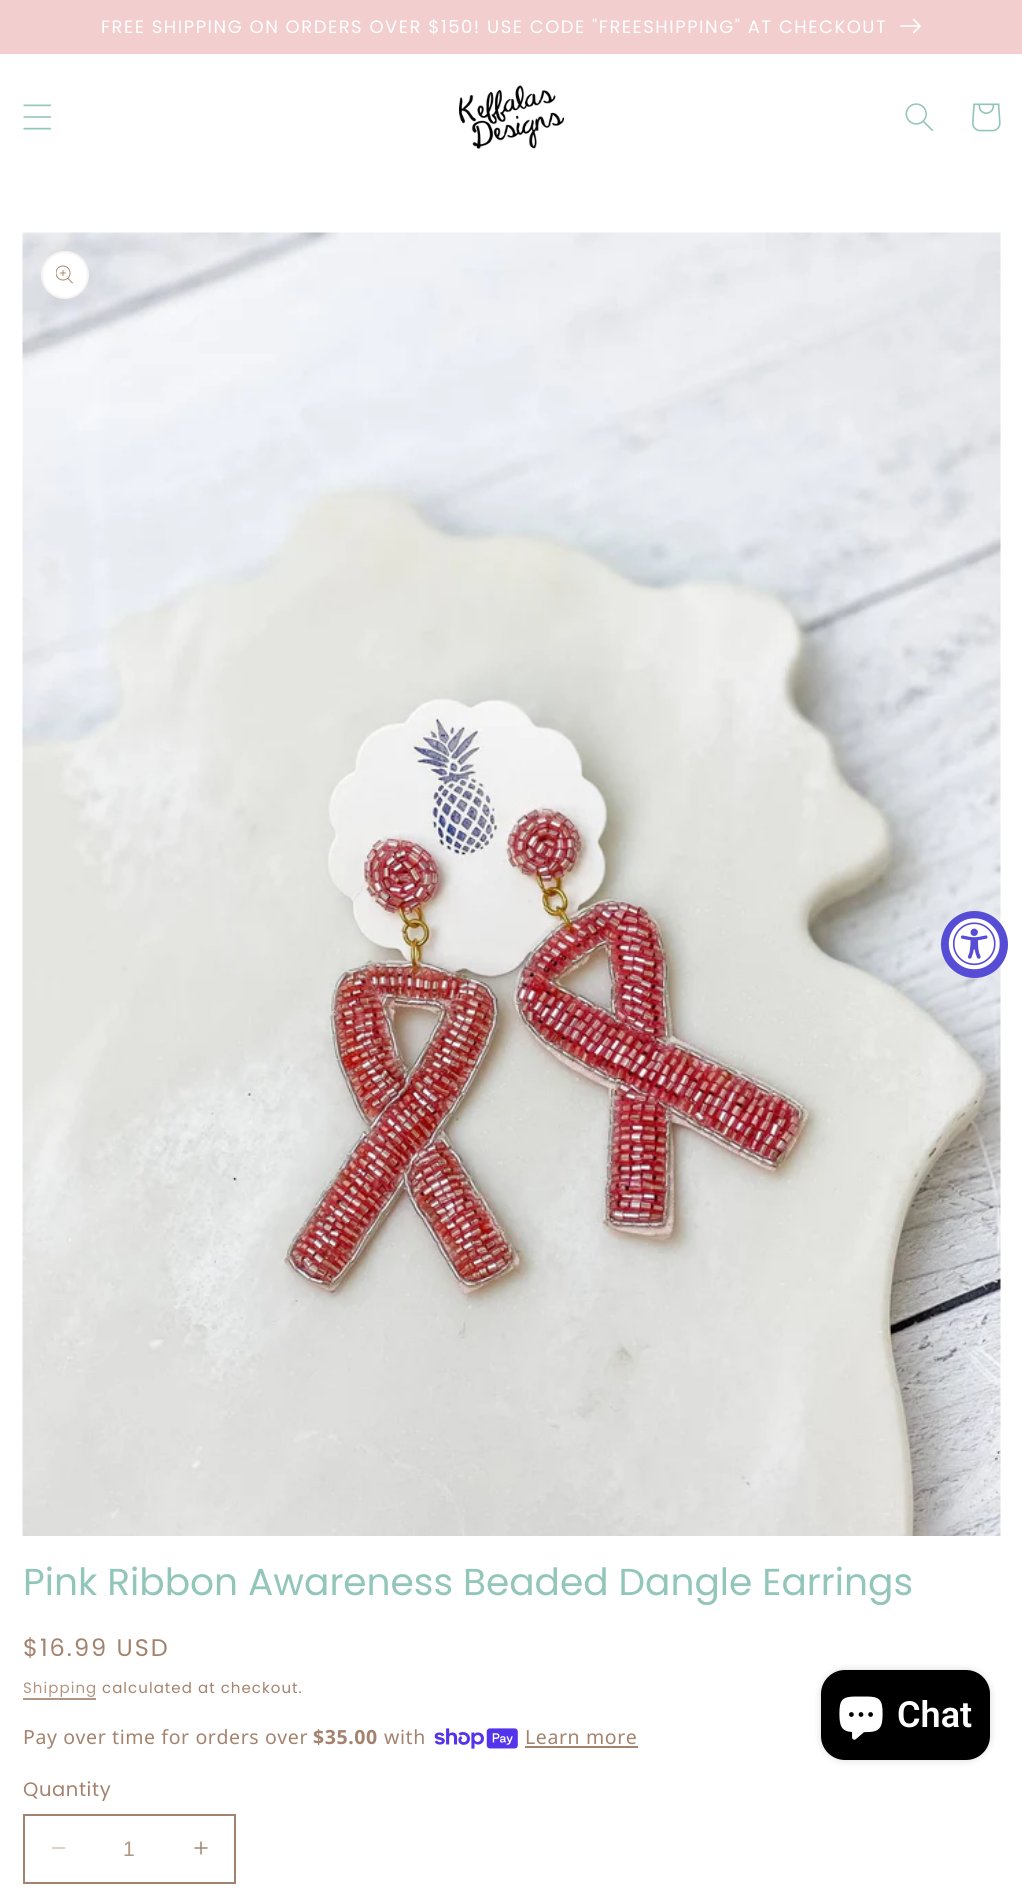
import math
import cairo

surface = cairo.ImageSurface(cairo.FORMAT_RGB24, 1022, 1887)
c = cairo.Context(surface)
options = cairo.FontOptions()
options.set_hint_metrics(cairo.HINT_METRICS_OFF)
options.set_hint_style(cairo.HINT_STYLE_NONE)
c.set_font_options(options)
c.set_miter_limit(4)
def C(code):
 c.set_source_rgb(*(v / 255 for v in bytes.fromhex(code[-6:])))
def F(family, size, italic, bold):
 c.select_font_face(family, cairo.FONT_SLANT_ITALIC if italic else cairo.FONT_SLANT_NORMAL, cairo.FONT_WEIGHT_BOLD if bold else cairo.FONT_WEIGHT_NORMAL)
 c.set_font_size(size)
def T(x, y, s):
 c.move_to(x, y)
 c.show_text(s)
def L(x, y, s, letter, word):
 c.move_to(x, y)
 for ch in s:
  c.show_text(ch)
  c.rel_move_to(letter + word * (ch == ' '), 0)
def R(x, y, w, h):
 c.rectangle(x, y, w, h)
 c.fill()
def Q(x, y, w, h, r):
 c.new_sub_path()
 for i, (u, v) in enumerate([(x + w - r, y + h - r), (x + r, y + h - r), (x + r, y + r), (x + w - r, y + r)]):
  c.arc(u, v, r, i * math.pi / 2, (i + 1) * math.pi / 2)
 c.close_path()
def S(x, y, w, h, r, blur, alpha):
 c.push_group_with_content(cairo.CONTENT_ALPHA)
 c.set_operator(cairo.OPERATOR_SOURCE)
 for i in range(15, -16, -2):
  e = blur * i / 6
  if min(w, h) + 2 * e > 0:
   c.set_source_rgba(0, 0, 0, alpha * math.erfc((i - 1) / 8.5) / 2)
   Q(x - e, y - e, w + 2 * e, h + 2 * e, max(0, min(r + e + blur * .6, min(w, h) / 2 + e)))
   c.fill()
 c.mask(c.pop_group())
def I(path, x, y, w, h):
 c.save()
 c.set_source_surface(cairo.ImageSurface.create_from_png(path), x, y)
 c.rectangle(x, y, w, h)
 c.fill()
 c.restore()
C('ffffff')
c.paint()
C('f2cece')
R(0,0,1022,54)
F('Poppins',18,0,0)
C('ffffff')
L(101,33,'FREE SHIPPING ON ORDERS OVER $150! USE CODE "FREESHIPPING" AT CHECKOUT',1.5,0)
I('1.png',900,18,21,16)
I('2.png',23,104,29,26)
I('3.png',459,85,105,64)
I('4.png',905,103,28,28)
I('5.png',972,103,29,29)
I('7.png',22,232,979,1304)
C('574cd5')
c.arc(974.5,944.5,33.5,0,2 * math.pi)
c.fill()
I('6.png',948,918,52,52)
C('ffffff')
c.arc(65,275,24,0,2 * math.pi)
c.fill()
c.arc(65,275,23,0,2 * math.pi)
c.set_source_rgba(0.643,0.514,0.431,0.1)
c.stroke()
I('8.png',56,265,17,19)
F('Poppins',37.5,0,0)
C('93c6bb')
T(23,1595,'Pink Ribbon Awareness Beaded Dangle Earrings')
F('Poppins',24,0,0)
C('a4836e')
L(23,1656,'$16.99 USD',2,0)
F('Poppins',15,0,0)
C('b29684')
L(23,1693,'Shipping',1.05,0)
R(23,1698,73,2)
C('a4836e')
L(102,1693,'calculated at checkout.',1.05,0)
F('Noto Sans',19.5,0,0)
L(23,1744,'Pay over time for orders over',.6,0)
F('Noto Sans',19.5,0,1)
L(313,1744,'$35.00',.6,0)
F('Noto Sans',19.5,0,0)
L(384,1744,'with',.6,0)
I('9.png',434,1728,84,21)
L(525,1744,'Learn more',.6,0)
R(525,1746,113,2)
F('Poppins',19.5,0,0)
L(23,1796,'Quantity',.6,0)
I('10.png',51,1847,15,2)
I('11.png',194,1841,14,14)
c.rectangle(24,1815,211,68)
c.stroke()
F('Liberation Sans',21,0,0)
C('b29684')
T(123,1856,'1')
C('000000')
S(821,1670,169,90,24,4,.15)
C('000000')
Q(821,1670,169,90,24)
c.fill()
I('12.png',839,1696,44,44)
F('Roboto SemiBold',36,0,0)
C('ffffff')
T(897,1727,'Chat')
surface.write_to_png('o.png')
